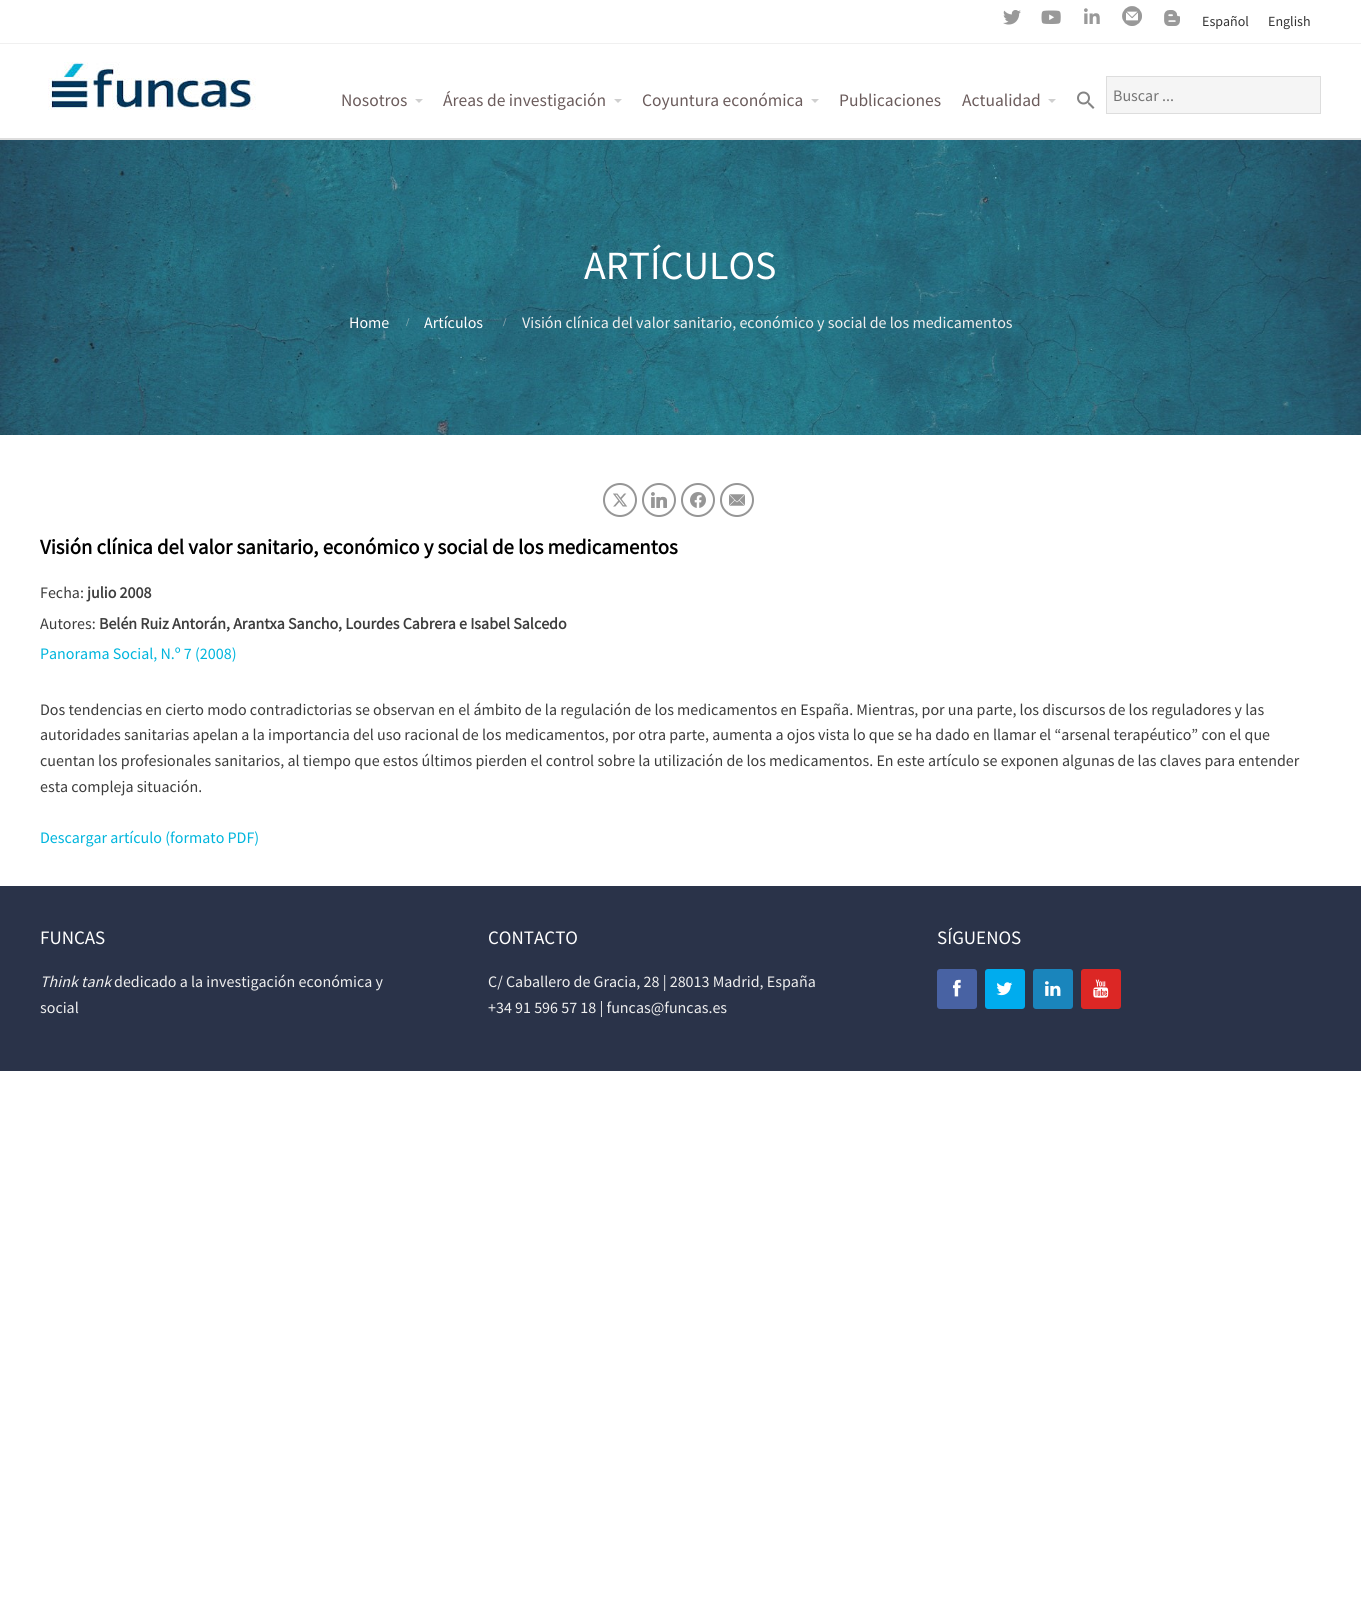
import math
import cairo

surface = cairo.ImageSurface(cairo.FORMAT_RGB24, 1361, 1611)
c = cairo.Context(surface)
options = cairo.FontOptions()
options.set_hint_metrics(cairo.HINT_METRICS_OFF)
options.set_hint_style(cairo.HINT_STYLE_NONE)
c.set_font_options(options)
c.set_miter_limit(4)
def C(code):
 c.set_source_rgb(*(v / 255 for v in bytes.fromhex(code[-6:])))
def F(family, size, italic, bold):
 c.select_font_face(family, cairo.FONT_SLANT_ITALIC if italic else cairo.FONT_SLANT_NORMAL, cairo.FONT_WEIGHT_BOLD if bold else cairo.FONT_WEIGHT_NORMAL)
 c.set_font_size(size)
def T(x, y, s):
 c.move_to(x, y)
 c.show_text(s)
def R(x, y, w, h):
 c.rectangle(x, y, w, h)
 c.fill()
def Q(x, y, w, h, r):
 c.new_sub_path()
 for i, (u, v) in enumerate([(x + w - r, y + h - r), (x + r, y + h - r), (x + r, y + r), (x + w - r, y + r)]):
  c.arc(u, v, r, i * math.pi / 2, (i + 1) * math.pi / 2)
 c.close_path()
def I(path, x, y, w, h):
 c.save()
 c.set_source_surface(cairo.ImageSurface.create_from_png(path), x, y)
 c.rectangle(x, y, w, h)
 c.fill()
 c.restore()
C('ffffff')
c.paint()
C('f0f0f0')
R(0,43,1361,1)
I('1.png',1003,10,18,15)
I('2.png',1041,10,20,14)
I('3.png',1084,8,16,16)
I('4.png',1122,6,20,20)
I('5.png',1164,10,16,16)
F('Source Sans Pro',14,0,0)
C('333333')
T(1202,26,'Español')
T(1268,26,'English')
C('dddddd')
R(0,138,1361,2)
I('6.png',48,62,208,48)
F('Source Sans Pro',17.5,0,0)
C('6b5c5c')
T(341,106,'Nosotros')
C('cfcfcf')
c.new_path()
c.move_to(415,99)
c.line_to(423,99)
c.line_to(419,103)
c.close_path()
c.fill()
C('6b5c5c')
T(443,106,'Áreas de investigación')
C('cfcfcf')
c.new_path()
c.move_to(614,99)
c.line_to(622,99)
c.line_to(618,103)
c.close_path()
c.fill()
C('6b5c5c')
T(642,106,'Coyuntura económica')
C('cfcfcf')
c.new_path()
c.move_to(811,99)
c.line_to(819,99)
c.line_to(815,103)
c.close_path()
c.fill()
C('6b5c5c')
T(839,106,'Publicaciones')
T(962,106,'Actualidad')
C('cfcfcf')
c.new_path()
c.move_to(1048,99)
c.line_to(1056,99)
c.line_to(1052,103)
c.close_path()
c.fill()
I('7.png',1077,91,18,18)
C('f5f5f5')
c.rectangle(1106.5,76.5,214,37)
c.fill_preserve()
C('dddddd')
c.set_line_width(1)
c.stroke()
F('Source Sans Pro',16,0,0)
C('757575')
T(1113,101,'Buscar ...')
I('8.png',0,140,1361,295)
F('Source Sans Pro',40,0,0)
C('ffffff')
T(584,279,'ARTÍCULOS')
F('Source Sans Pro',16,0,0)
T(349,328,'Home')
F('Liberation Serif',12,0,1)
C('81a8b1')
T(406,326,'/')
F('Source Sans Pro',16,0,0)
C('ffffff')
T(424,328,'Artículos')
F('Liberation Serif',12,0,1)
C('82a2ac')
T(503,326,'/')
F('Source Sans Pro',16,0,0)
C('eeeeee')
T(522,328,'Visión clínica del valor sanitario, económico y social de los medicamentos')
c.new_path()
c.arc(620,500,16,0,2 * math.pi)
C('969696')
c.set_line_width(2)
c.stroke()
I('9.png',613,493,15,14)
c.arc(659,500,16,0,2 * math.pi)
c.stroke()
I('10.png',651,492,16,16)
c.arc(698,500,16,0,2 * math.pi)
c.stroke()
I('11.png',690,492,16,16)
c.arc(737,500,16,0,2 * math.pi)
c.stroke()
I('12.png',729,494,16,12)
F('Source Sans Pro',20.8,0,1)
C('000000')
T(40,554,'Visión clínica del valor sanitario, económico y social de los medicamentos')
F('Source Sans Pro',16,0,0)
C('3d3d3d')
T(40,598,'Fecha:')
F('Source Sans Pro',16,0,1)
T(87,598,'julio 2008')
F('Source Sans Pro',16,0,0)
T(40,629,'Autores:')
F('Source Sans Pro',16,0,1)
T(99,629,'Belén Ruiz Antorán, Arantxa Sancho, Lourdes Cabrera e Isabel Salcedo')
F('Source Sans Pro',16,0,0)
C('00b5dd')
T(40,659,'Panorama Social, N.º 7 (2008)')
C('3d3d3d')
T(40,715,'Dos tendencias en cierto modo contradictorias se observan en el ámbito de la regulación de los medicamentos en España. Mientras, por una parte, los discursos de los reguladores y las')
T(40,740,'autoridades sanitarias apelan a la importancia del uso racional de los medicamentos, por otra parte, aumenta a ojos vista lo que se ha dado en llamar el “arsenal terapéutico” con el que')
T(40,766,'cuentan los profesionales sanitarios, al tiempo que estos últimos pierden el control sobre la utilización de los medicamentos. En este artículo se exponen algunas de las claves para entender')
T(40,792,'esta compleja situación.')
C('00b5dd')
T(40,843,'Descargar artículo (formato PDF)')
C('2a3349')
R(0,886,1361,185)
F('Source Sans Pro',19,0,0)
C('ffffff')
T(40,944,'FUNCAS')
F('Source Sans Pro',16,1,0)
C('eeeeee')
T(40,987,'Think tank')
F('Source Sans Pro',16,0,0)
T(114,987,'dedicado a la investigación económica y')
T(40,1013,'social')
F('Source Sans Pro',19,0,0)
C('ffffff')
T(488,944,'CONTACTO')
F('Source Sans Pro',16,0,0)
C('eeeeee')
T(488,987,'C/ Caballero de Gracia, 28 | 28013 Madrid, España')
T(488,1013,'+34 91 596 57 18 | funcas@funcas.es')
F('Source Sans Pro',19,0,0)
C('ffffff')
T(937,944,'SÍGUENOS')
C('4862a3')
Q(937,969,40,40,3)
c.fill()
I('13.png',953,979,8,18)
C('00acee')
Q(985,969,40,40,3)
c.fill()
I('14.png',996,982,17,14)
C('1a85bc')
Q(1033,969,40,40,3)
c.fill()
I('15.png',1045,981,16,15)
C('dc2725')
Q(1081,969,40,40,3)
c.fill()
I('16.png',1093,979,16,19)
surface.write_to_png('o.png')
